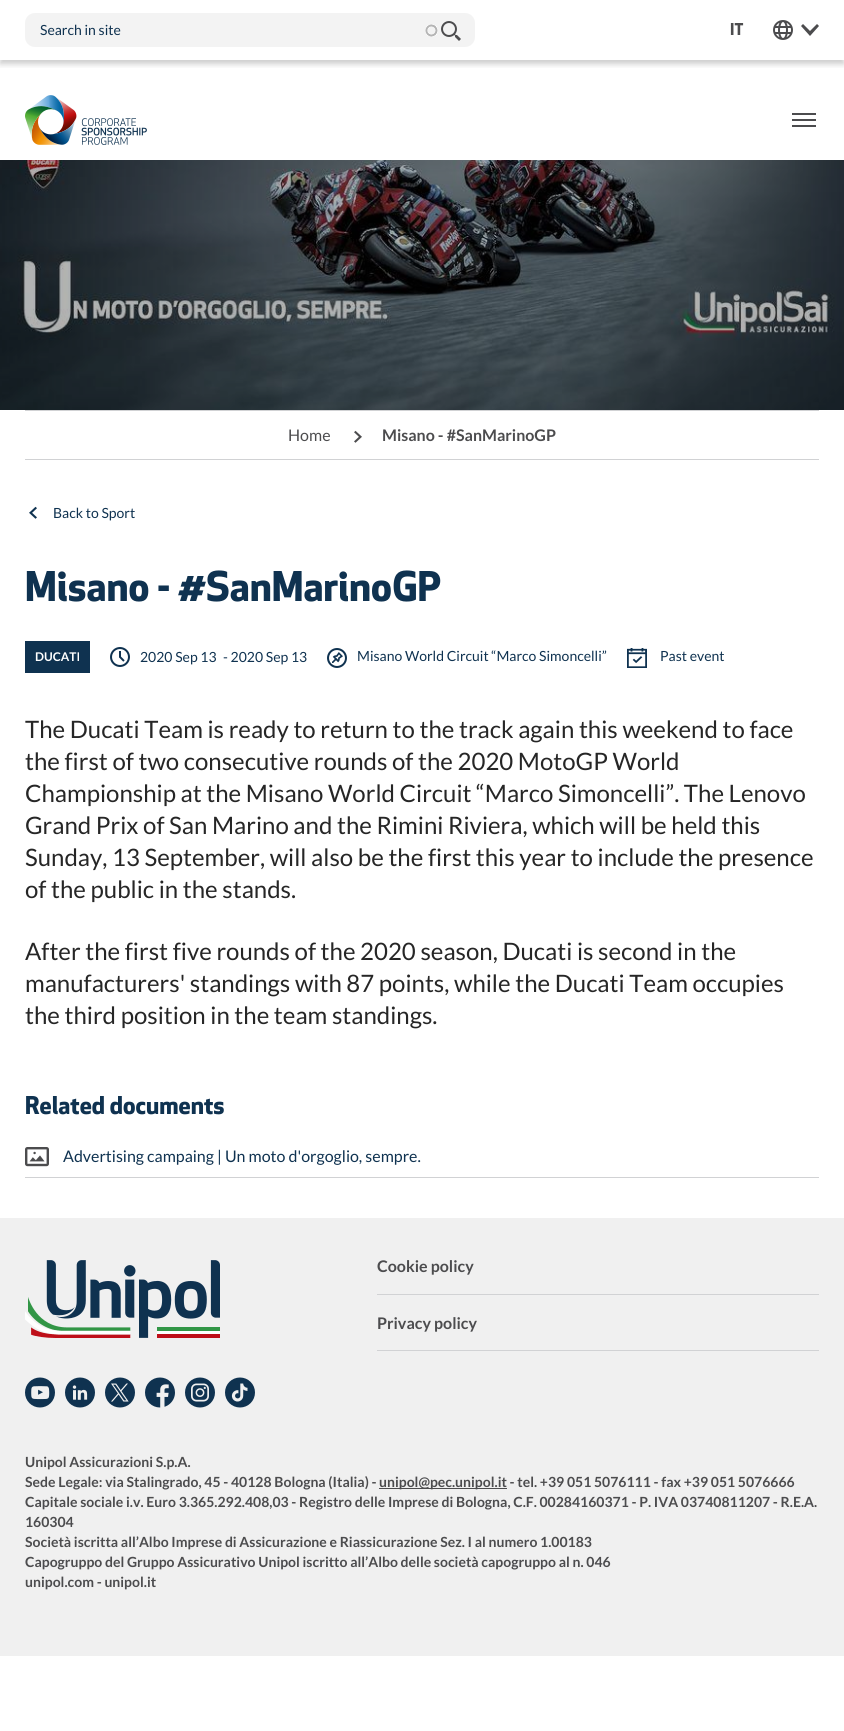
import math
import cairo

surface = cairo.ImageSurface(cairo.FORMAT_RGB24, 844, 1731)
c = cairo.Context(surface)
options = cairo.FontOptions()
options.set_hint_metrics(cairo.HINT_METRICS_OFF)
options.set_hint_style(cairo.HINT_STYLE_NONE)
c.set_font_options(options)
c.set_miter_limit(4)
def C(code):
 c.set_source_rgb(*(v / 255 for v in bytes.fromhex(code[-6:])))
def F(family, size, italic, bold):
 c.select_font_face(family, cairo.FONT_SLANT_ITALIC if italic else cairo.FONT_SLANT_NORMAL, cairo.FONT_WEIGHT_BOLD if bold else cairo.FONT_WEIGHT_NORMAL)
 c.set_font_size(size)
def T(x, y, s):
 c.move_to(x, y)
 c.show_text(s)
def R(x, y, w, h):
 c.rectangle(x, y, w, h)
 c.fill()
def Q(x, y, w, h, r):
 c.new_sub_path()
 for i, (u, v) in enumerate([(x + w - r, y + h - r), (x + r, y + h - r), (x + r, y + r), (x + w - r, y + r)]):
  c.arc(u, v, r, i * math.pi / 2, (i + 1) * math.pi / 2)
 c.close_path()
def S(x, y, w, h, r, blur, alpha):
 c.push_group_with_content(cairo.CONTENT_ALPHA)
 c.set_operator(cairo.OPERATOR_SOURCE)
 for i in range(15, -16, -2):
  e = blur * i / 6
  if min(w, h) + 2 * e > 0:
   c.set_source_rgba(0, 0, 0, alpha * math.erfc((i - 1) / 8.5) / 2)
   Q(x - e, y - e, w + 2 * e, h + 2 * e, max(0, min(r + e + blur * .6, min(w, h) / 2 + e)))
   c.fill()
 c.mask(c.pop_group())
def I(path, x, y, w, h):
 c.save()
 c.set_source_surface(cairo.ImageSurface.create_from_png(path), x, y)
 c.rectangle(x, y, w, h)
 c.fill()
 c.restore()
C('ffffff')
c.paint()
c.save()
c.rectangle(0,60,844,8)
c.clip()
C('000000')
S(0,4,844,60,0,3,.2)
c.restore()
C('f3f3f3')
Q(25,13,450,34,10)
c.fill()
I('1.png',425,24,13,13)
F('Lato',14,0,0)
C('0f3250')
T(40,35,'Search in site')
I('2.png',441,21,20,20)
F('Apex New',16,0,1)
C('4c4c4e')
T(730,35,'IT')
I('3.png',773,20,20,20)
c.new_path()
c.move_to(817,24)
c.line_to(819,26)
c.line_to(810,36)
c.line_to(801,26)
c.line_to(803,24)
c.line_to(810,31)
c.close_path()
c.fill()
I('4.png',25,95,122,50)
R(792,113,24,2)
R(792,119,24,2)
R(792,125,24,2)
I('5.png',0,160,844,250)
C('d1d2d4')
R(25,410,794,1)
R(25,459,794,1)
F('Lato',16,0,0)
C('4c4c4e')
T(288,441,'Home')
I('6.png',354,430,8,13)
F('Lato',16,0,1)
T(382,441,'Misano - #SanMarinoGP')
I('7.png',29,506,8,13)
F('Lato',14,0,0)
C('0f3250')
T(53,518,'Back to Sport')
F('Apex New',40,0,1)
T(25,601,'Misano - #SanMarinoGP')
R(25,641,65,32)
F('Lato',12,0,1)
C('ffffff')
T(35,661,'DUCATI')
I('8.png',110,647,20,20)
F('Lato',14,0,0)
C('0f3250')
T(140,662,'2020 Sep 13')
T(223,662,'- 2020 Sep 13')
I('9.png',327,648,20,20)
T(357,661,'Misano World Circuit “Marco Simoncelli”')
I('10.png',627,648,20,20)
T(660,661,'Past event')
F('Lato',24,0,0)
C('262626')
T(25,738,'The Ducati Team is ready to return to the track again this weekend to face')
T(25,770,'the first of two consecutive rounds of the 2020 MotoGP World')
T(25,802,'Championship at the Misano World Circuit “Marco Simoncelli”. The Lenovo')
T(25,834,'Grand Prix of San Marino and the Rimini Riviera, which will be held this')
T(25,866,'Sunday, 13 September, will also be the first this year to include the presence')
T(25,898,'of the public in the stands.')
T(25,960,'After the first five rounds of the 2020 season, Ducati is second in the')
T(25,992,'manufacturers\' standings with 87 points, while the Ducati Team occupies')
T(25,1024,'the third position in the team standings.')
F('Apex New',24,0,1)
C('0f3250')
T(25,1114,'Related documents')
C('d1d2d4')
R(25,1177,794,1)
I('11.png',25,1147,24,20)
F('Lato',16,0,0)
C('0f3250')
T(63,1162,'Advertising campaing | Un moto d\'orgoglio, sempre.')
C('f0f0f0')
R(0,1218,844,438)
I('12.png',25,1260,195,78)
I('13.png',25,1377,30,31)
I('14.png',65,1377,30,31)
I('15.png',105,1377,30,31)
I('16.png',145,1377,30,31)
I('17.png',185,1377,30,31)
I('18.png',225,1377,30,31)
C('d1d2d4')
R(377,1294,442,1)
F('Lato',16,0,1)
C('4c4c4e')
T(377,1272,'Cookie policy')
C('d1d2d4')
R(377,1350,442,1)
C('4c4c4e')
T(377,1329,'Privacy policy')
F('Lato',14,0,1)
T(25,1467,'Unipol Assicurazioni S.p.A.')
T(25,1487,'Sede Legale: via Stalingrado, 45 - 40128 Bologna (Italia) -')
R(379,1488,128,1)
T(379,1487,'unipol@pec.unipol.it - tel. +39 051 5076111 - fax +39 051 5076666')
T(25,1507,'Capitale sociale i.v. Euro 3.365.292.408,03 - Registro delle Imprese di Bologna, C.F. 00284160371 - P. IVA 03740811207 - R.E.A.')
T(25,1527,'160304')
T(25,1547,'Società iscritta all’Albo Imprese di Assicurazione e Riassicurazione Sez. I al numero 1.00183')
T(25,1567,'Capogruppo del Gruppo Assicurativo Unipol iscritto all’Albo delle società capogruppo al n. 046')
T(25,1587,'unipol.com - unipol.it')
surface.write_to_png('o.png')
